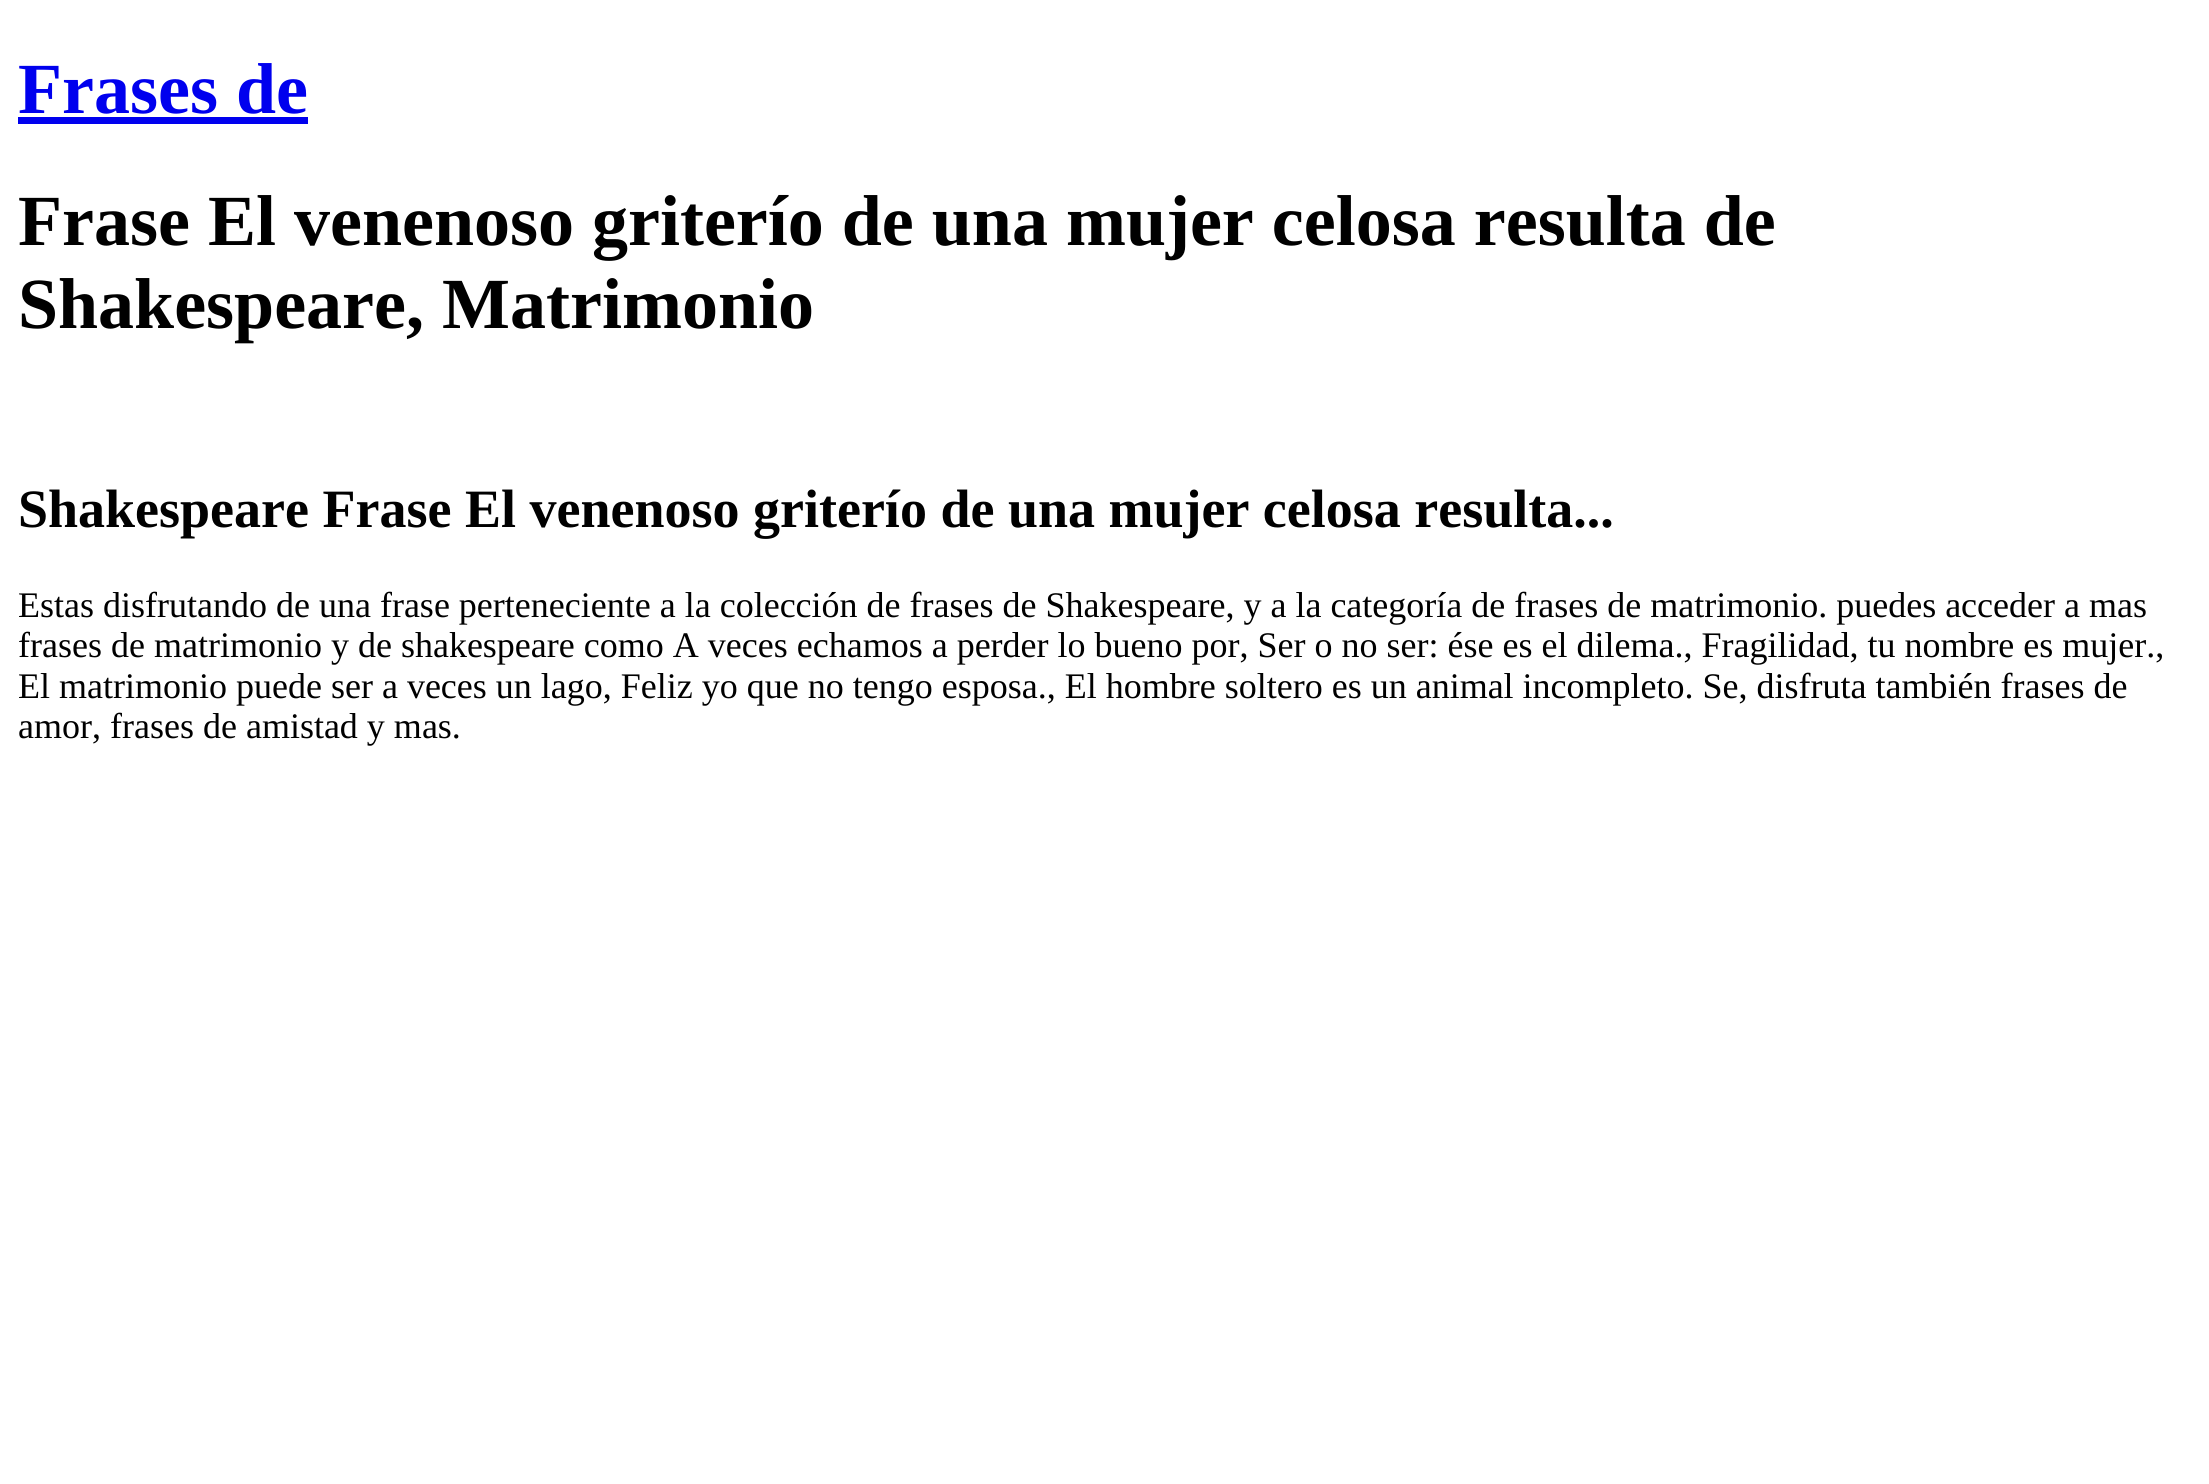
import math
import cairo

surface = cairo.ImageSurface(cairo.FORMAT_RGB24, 2209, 1484)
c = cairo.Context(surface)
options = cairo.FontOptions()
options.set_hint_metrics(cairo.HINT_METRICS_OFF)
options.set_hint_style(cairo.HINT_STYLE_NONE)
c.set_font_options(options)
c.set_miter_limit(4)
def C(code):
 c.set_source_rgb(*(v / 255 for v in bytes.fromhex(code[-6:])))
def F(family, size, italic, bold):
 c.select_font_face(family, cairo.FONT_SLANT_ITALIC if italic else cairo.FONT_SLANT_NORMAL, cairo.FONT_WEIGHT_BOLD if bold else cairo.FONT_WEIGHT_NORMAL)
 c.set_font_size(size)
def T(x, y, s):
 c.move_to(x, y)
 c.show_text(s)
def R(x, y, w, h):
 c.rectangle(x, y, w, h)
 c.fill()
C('ffffff')
c.paint()
F('Liberation Serif',72,0,1)
C('0000ee')
T(18,113,'Frases de')
R(18,117,290,7)
C('000000')
T(18,245,'Frase El venenoso griterío de una mujer celosa resulta de')
T(18,328,'Shakespeare, Matrimonio')
F('Liberation Serif',54,0,1)
T(18,527,'Shakespeare Frase El venenoso griterío de una mujer celosa resulta...')
F('Liberation Serif',36,0,0)
T(18,617,'Estas disfrutando de una frase perteneciente a la colección de frases de Shakespeare, y a la categoría de frases de matrimonio. puedes acceder a mas')
T(18,657,'frases de matrimonio y de shakespeare como A veces echamos a perder lo bueno por, Ser o no ser: ése es el dilema., Fragilidad, tu nombre es mujer.,')
T(18,698,'El matrimonio puede ser a veces un lago, Feliz yo que no tengo esposa., El hombre soltero es un animal incompleto. Se, disfruta también frases de')
T(18,738,'amor, frases de amistad y mas.')
surface.write_to_png('o.png')
